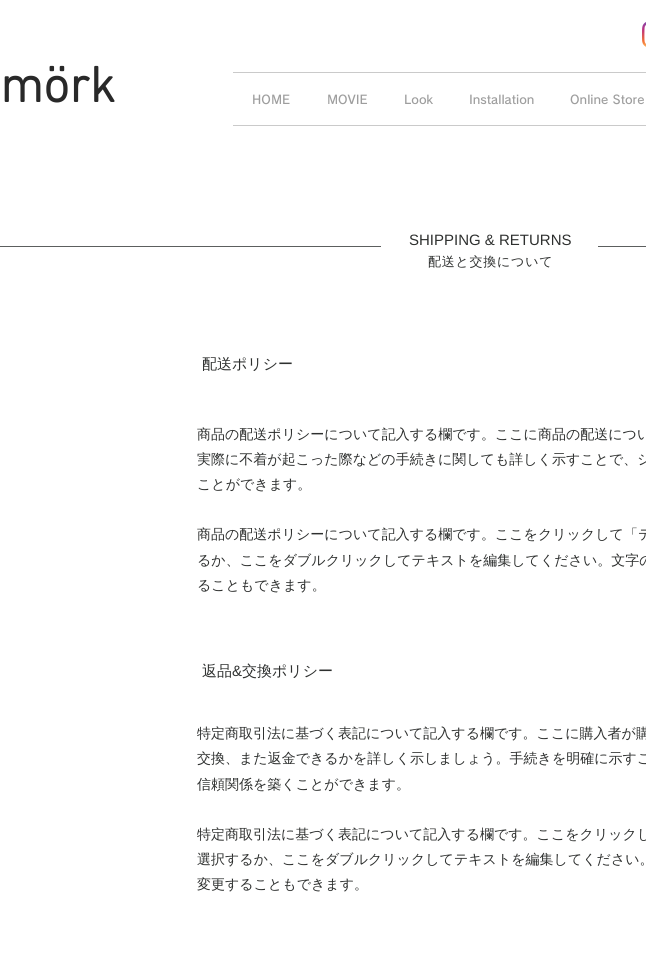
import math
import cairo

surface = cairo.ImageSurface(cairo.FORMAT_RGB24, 646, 961)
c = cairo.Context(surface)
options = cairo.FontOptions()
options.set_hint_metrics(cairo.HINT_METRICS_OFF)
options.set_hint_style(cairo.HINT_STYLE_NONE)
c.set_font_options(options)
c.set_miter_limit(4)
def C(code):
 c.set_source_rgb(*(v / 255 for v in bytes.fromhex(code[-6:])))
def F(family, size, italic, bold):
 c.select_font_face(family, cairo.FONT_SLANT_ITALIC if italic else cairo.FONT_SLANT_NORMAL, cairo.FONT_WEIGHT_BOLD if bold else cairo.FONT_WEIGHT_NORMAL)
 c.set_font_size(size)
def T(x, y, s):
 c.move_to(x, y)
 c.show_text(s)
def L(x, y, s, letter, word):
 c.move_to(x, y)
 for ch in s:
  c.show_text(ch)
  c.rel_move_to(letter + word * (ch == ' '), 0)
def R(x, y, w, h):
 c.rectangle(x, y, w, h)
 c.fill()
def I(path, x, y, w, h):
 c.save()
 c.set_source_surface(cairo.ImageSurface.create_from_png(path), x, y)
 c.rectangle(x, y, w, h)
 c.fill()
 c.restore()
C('ffffff')
c.paint()
I('1.png',642,22,4,25)
F('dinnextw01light',51,0,1)
C('292929')
T(0,102,'mörk')
C('cacaca')
R(233,72,413,1)
R(233,125,413,1)
F('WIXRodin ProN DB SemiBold',12,0,0)
C('9e9e9e')
T(252,104,'HOME')
T(327,104,'MOVIE')
T(404,104,'Look')
T(469,104,'Installation')
T(570,104,'Online Store')
C('5c5f5e')
R(0,246,381,1)
F('Liberation Sans',15,0,0)
C('2e302f')
T(409,245,'SHIPPING & RETURNS')
F('WenQuanYi Zen Hei Medium',13,0,0)
L(428,266,'配送と交換について',.75,0)
C('5c5f5e')
R(598,246,48,1)
F('WenQuanYi Zen Hei Medium',15,0,0)
C('2e302f')
T(202,369,'配送ポリシー')
F('WenQuanYi Zen Hei Medium',14,0,0)
T(197,439,'商品の配送ポリシーについて記入する欄です。ここに商品の配送につい')
T(197,464,'実際に不着が起こった際などの手続きに関しても詳しく示すことで、シ')
T(197,489,'ことができます。')
T(197,539,'商品の配送ポリシーについて記入する欄です。ここをクリックして「テ')
T(197,565,'るか、ここをダブルクリックしてテキストを編集してください。文字の')
T(197,590,'ることもできます。')
F('WenQuanYi Zen Hei Medium',15,0,0)
T(202,676,'返品')
F('Liberation Sans',15,0,0)
T(232,676,'&')
F('WenQuanYi Zen Hei Medium',15,0,0)
T(242,676,'交換ポリシー')
F('WenQuanYi Zen Hei Medium',14,0,0)
T(197,738,'特定商取引法に基づく表記について記入する欄です。ここに購入者が購')
T(197,763,'交換、また返金できるかを詳しく示しましょう。手続きを明確に示すこ')
T(197,789,'信頼関係を築くことができます。')
T(197,839,'特定商取引法に基づく表記について記入する欄です。ここをクリックし')
T(197,864,'選択するか、ここをダブルクリックしてテキストを編集してください。')
T(197,889,'変更することもできます。')
surface.write_to_png('o.png')
